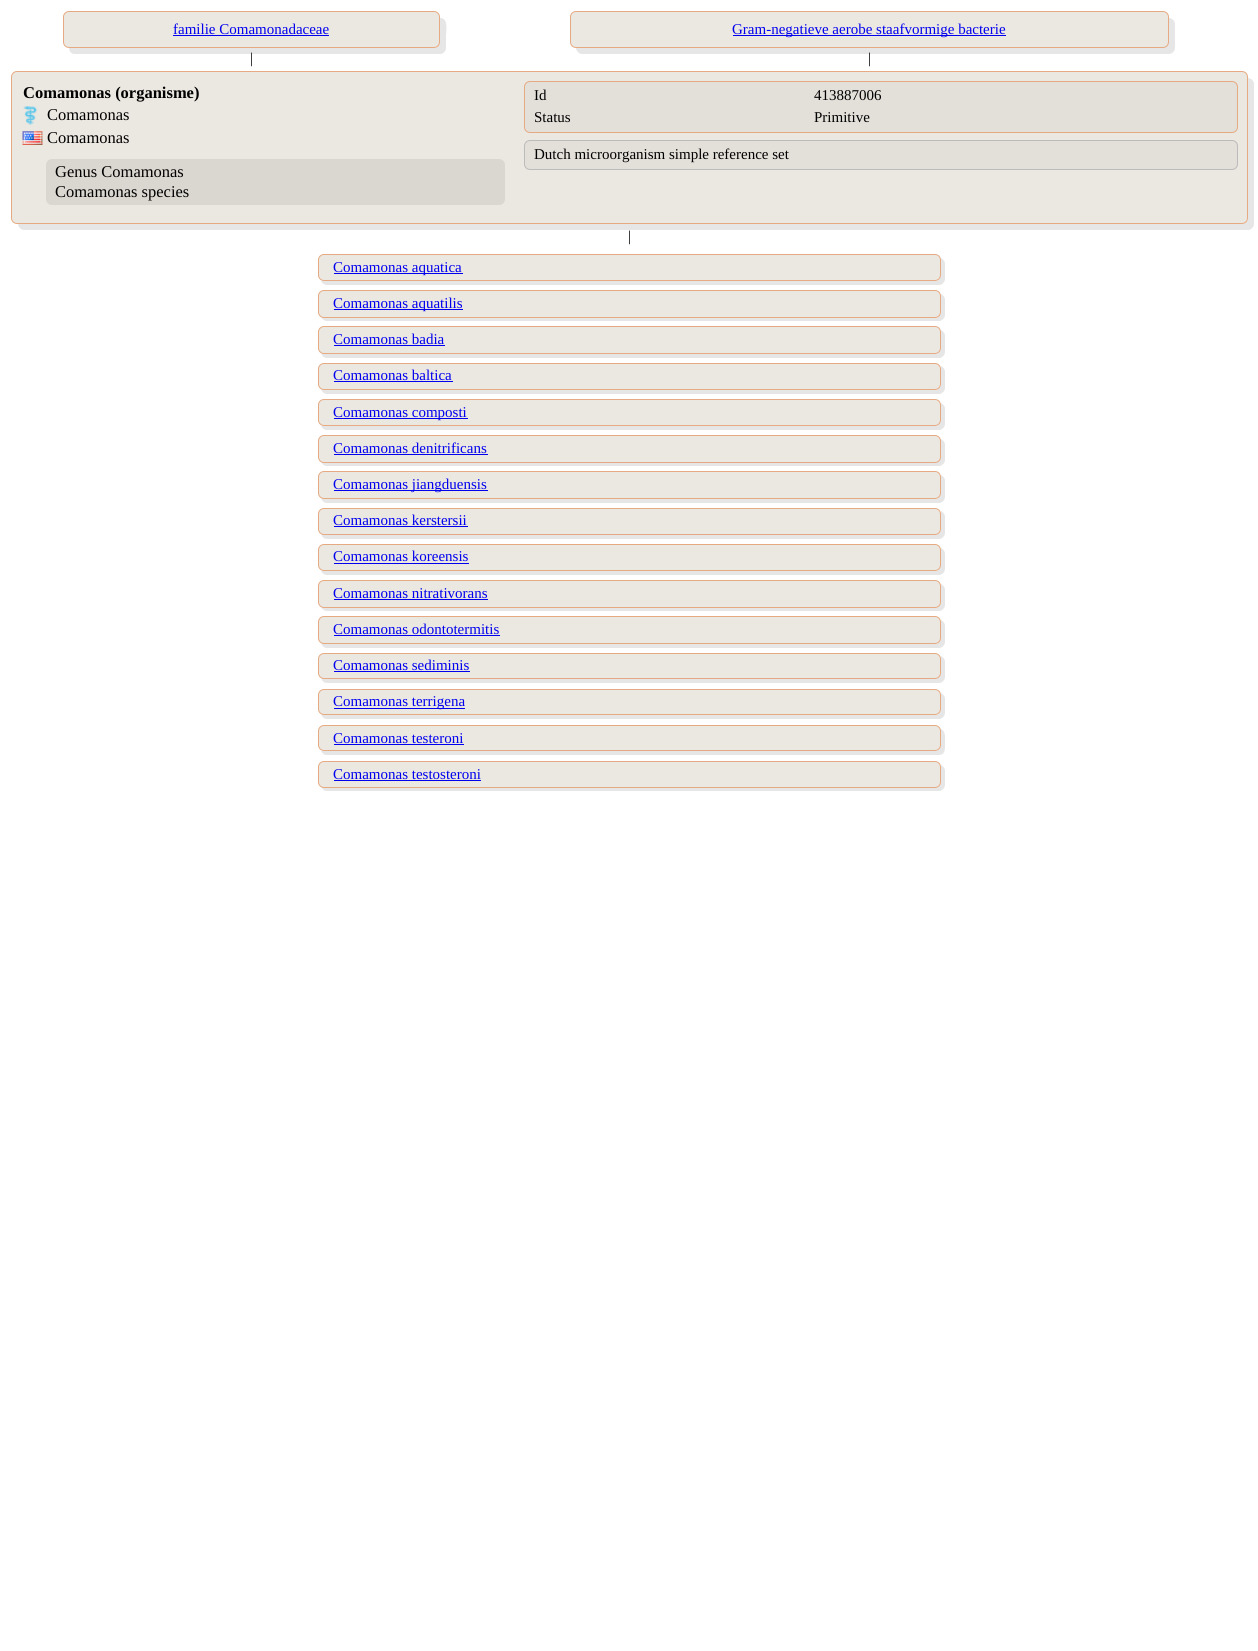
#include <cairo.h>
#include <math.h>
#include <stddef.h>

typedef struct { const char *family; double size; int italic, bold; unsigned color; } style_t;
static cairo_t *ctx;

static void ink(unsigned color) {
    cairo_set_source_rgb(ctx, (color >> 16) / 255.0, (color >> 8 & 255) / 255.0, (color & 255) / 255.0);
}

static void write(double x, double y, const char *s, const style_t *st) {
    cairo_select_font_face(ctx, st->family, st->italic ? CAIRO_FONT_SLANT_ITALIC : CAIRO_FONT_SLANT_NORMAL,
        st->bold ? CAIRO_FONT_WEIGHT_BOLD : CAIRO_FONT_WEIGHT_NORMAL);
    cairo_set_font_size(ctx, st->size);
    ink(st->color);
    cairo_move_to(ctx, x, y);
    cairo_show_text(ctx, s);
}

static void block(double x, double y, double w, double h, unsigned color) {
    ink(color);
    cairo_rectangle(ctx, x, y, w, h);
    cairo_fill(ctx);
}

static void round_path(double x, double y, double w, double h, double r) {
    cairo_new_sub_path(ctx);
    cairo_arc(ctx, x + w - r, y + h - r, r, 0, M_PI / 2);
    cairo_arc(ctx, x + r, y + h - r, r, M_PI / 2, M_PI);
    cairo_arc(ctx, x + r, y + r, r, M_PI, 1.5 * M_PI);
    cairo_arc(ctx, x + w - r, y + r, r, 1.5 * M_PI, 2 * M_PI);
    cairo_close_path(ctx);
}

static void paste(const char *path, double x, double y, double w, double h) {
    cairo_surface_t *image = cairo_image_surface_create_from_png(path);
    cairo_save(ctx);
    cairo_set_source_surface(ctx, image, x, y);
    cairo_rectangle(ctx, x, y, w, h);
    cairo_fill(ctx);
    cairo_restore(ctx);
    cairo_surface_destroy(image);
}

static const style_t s1 = {"Liberation Serif", 15, 0, 0, 0x0000ee};
static const style_t s2 = {"Liberation Serif", 15, 0, 0, 0x000000};
static const style_t s3 = {"Liberation Serif", 16.5, 0, 1, 0x000000};
static const style_t s4 = {"Liberation Serif", 16.5, 0, 0, 0x000000};

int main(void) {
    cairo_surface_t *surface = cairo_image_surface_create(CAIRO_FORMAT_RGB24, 1258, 1651);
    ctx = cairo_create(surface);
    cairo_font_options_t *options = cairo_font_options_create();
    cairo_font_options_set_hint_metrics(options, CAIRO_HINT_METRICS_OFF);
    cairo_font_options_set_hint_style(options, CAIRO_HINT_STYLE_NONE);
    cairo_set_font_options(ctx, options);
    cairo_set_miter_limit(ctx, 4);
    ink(0xffffff);
    cairo_paint(ctx);
    ink(0xe6e6e6);
    cairo_new_path(ctx);
    cairo_move_to(ctx, 69, 48);
    cairo_curve_to(ctx, 69, 51, 71, 54, 75, 54);
    cairo_line_to(ctx, 440, 54);
    cairo_curve_to(ctx, 443, 54, 445, 52, 446, 49);
    cairo_line_to(ctx, 446, 36);
    cairo_curve_to(ctx, 446, 31, 449, 18, 440, 18);
    cairo_line_to(ctx, 440, 41);
    cairo_curve_to(ctx, 440, 45, 437, 48, 434, 48);
    cairo_close_path(ctx);
    cairo_fill(ctx);
    ink(0xebe7e1);
    round_path(63.5, 11.5, 376, 36, 5.5);
    cairo_fill_preserve(ctx);
    ink(0xe6aa83);
    cairo_set_line_width(ctx, 1);
    cairo_stroke(ctx);
    write(173, 34, "familie Comamonadaceae", &s1);
    block(173, 35, 156, 1, 0x0000ee);
    ink(0xe6e6e6);
    cairo_new_path(ctx);
    cairo_move_to(ctx, 576, 47);
    cairo_line_to(ctx, 576, 48);
    cairo_curve_to(ctx, 576, 51, 579, 54, 582, 54);
    cairo_line_to(ctx, 1169, 54);
    cairo_curve_to(ctx, 1172, 54, 1175, 51, 1175, 48);
    cairo_line_to(ctx, 1175, 24);
    cairo_curve_to(ctx, 1175, 21, 1172, 18, 1169, 18);
    cairo_line_to(ctx, 1169, 34);
    cairo_curve_to(ctx, 1169, 38, 1170, 47, 1162, 48);
    cairo_close_path(ctx);
    cairo_fill(ctx);
    ink(0xebe7e1);
    round_path(570.5, 11.5, 598, 36, 5.5);
    cairo_fill_preserve(ctx);
    ink(0xe6aa83);
    cairo_stroke(ctx);
    block(733, 35, 273, 1, 0x0000ee);
    write(732, 34, "Gram-negatieve aerobe staafvormige bacterie", &s1);
    write(250, 63, "|", &s2);
    write(868, 63, "|", &s2);
    ink(0xe6e6e6);
    cairo_new_path(ctx);
    cairo_move_to(ctx, 18, 224);
    cairo_curve_to(ctx, 18, 227, 21, 230, 24, 230);
    cairo_line_to(ctx, 1248, 230);
    cairo_curve_to(ctx, 1251, 230, 1254, 227, 1254, 224);
    cairo_line_to(ctx, 1254, 84);
    cairo_curve_to(ctx, 1254, 81, 1251, 78, 1248, 78);
    cairo_line_to(ctx, 1248, 218);
    cairo_curve_to(ctx, 1248, 221, 1245, 224, 1241, 224);
    cairo_close_path(ctx);
    cairo_fill(ctx);
    ink(0xebe7e1);
    round_path(11.5, 71.5, 1236, 152, 5.5);
    cairo_fill_preserve(ctx);
    ink(0xe6aa83);
    cairo_stroke(ctx);
    write(23, 98, "Comamonas (organisme)", &s3);
    paste("pic1.png", 23, 106, 14, 19);
    write(47, 120, "Comamonas", &s4);
    paste("pic2.png", 22, 131, 21, 14);
    write(47, 143, "Comamonas", &s4);
    ink(0xdad6d0);
    round_path(46, 159, 459, 46, 6);
    cairo_fill(ctx);
    write(55, 177, "Genus Comamonas", &s4);
    write(55, 197, "Comamonas species", &s4);
    ink(0xe3dfd9);
    round_path(524.5, 81.5, 713, 51, 5.5);
    cairo_fill_preserve(ctx);
    ink(0xe6aa83);
    cairo_stroke(ctx);
    write(534, 100, "Id", &s2);
    write(814, 100, "413887006", &s2);
    write(534, 122, "Status", &s2);
    write(814, 122, "Primitive", &s2);
    ink(0xe3dfd9);
    round_path(524.5, 140.5, 713, 29, 5.5);
    cairo_fill_preserve(ctx);
    ink(0xbbbbbb);
    cairo_stroke(ctx);
    write(534, 159, "Dutch microorganism simple reference set", &s2);
    write(628, 241, "|", &s2);
    ink(0xe6e6e6);
    cairo_new_path(ctx);
    cairo_move_to(ctx, 321, 281);
    cairo_curve_to(ctx, 322, 283, 324, 285, 327, 285);
    cairo_line_to(ctx, 939, 285);
    cairo_curve_to(ctx, 942, 285, 945, 282, 945, 279);
    cairo_line_to(ctx, 945, 264);
    cairo_curve_to(ctx, 945, 261, 943, 259, 941, 258);
    cairo_line_to(ctx, 941, 268);
    cairo_curve_to(ctx, 941, 272, 942, 281, 935, 281);
    cairo_line_to(ctx, 324, 281);
    cairo_close_path(ctx);
    cairo_fill(ctx);
    ink(0xebe7e1);
    round_path(318.5, 254.5, 622, 26, 5.5);
    cairo_fill_preserve(ctx);
    ink(0xe6aa83);
    cairo_stroke(ctx);
    block(334, 273, 129, 1, 0x0000ee);
    write(333, 272, "Comamonas aquatica", &s1);
    ink(0xe6e6e6);
    cairo_new_path(ctx);
    cairo_move_to(ctx, 321, 317);
    cairo_curve_to(ctx, 322, 319, 324, 321, 327, 321);
    cairo_line_to(ctx, 939, 321);
    cairo_curve_to(ctx, 942, 321, 945, 318, 945, 315);
    cairo_line_to(ctx, 945, 300);
    cairo_curve_to(ctx, 945, 297, 943, 295, 941, 294);
    cairo_line_to(ctx, 941, 304);
    cairo_curve_to(ctx, 941, 309, 942, 317, 935, 318);
    cairo_line_to(ctx, 324, 318);
    cairo_close_path(ctx);
    cairo_fill(ctx);
    ink(0xebe7e1);
    round_path(318.5, 290.5, 622, 27, 5.5);
    cairo_fill_preserve(ctx);
    ink(0xe6aa83);
    cairo_stroke(ctx);
    block(334, 309, 129, 1, 0x0000ee);
    write(333, 308, "Comamonas aquatilis", &s1);
    ink(0xe6e6e6);
    cairo_new_path(ctx);
    cairo_move_to(ctx, 321, 353);
    cairo_curve_to(ctx, 322, 356, 324, 358, 327, 358);
    cairo_line_to(ctx, 939, 358);
    cairo_curve_to(ctx, 942, 358, 945, 355, 945, 352);
    cairo_line_to(ctx, 945, 336);
    cairo_curve_to(ctx, 945, 333, 943, 331, 941, 330);
    cairo_line_to(ctx, 941, 340);
    cairo_curve_to(ctx, 941, 345, 942, 354, 935, 354);
    cairo_line_to(ctx, 324, 354);
    cairo_close_path(ctx);
    cairo_fill(ctx);
    ink(0xebe7e1);
    round_path(318.5, 326.5, 622, 27, 5.5);
    cairo_fill_preserve(ctx);
    ink(0xe6aa83);
    cairo_stroke(ctx);
    write(333, 344, "Comamonas badia", &s1);
    block(334, 345, 111, 1, 0x0000ee);
    ink(0xe6e6e6);
    cairo_new_path(ctx);
    cairo_move_to(ctx, 321, 389);
    cairo_curve_to(ctx, 322, 392, 324, 394, 327, 394);
    cairo_line_to(ctx, 939, 394);
    cairo_curve_to(ctx, 942, 394, 945, 391, 945, 388);
    cairo_line_to(ctx, 945, 372);
    cairo_curve_to(ctx, 945, 369, 943, 367, 941, 366);
    cairo_line_to(ctx, 941, 369);
    cairo_line_to(ctx, 941, 384);
    cairo_curve_to(ctx, 941, 387, 938, 390, 935, 390);
    cairo_line_to(ctx, 324, 390);
    cairo_close_path(ctx);
    cairo_fill(ctx);
    ink(0xebe7e1);
    round_path(318.5, 363.5, 622, 26, 5.5);
    cairo_fill_preserve(ctx);
    ink(0xe6aa83);
    cairo_stroke(ctx);
    write(333, 380, "Comamonas baltica", &s1);
    block(334, 381, 119, 1, 0x0000ee);
    ink(0xe6e6e6);
    cairo_new_path(ctx);
    cairo_move_to(ctx, 321, 426);
    cairo_curve_to(ctx, 322, 428, 324, 430, 327, 430);
    cairo_line_to(ctx, 939, 430);
    cairo_curve_to(ctx, 942, 430, 945, 427, 945, 424);
    cairo_line_to(ctx, 945, 409);
    cairo_curve_to(ctx, 945, 406, 943, 404, 941, 403);
    cairo_line_to(ctx, 941, 412);
    cairo_curve_to(ctx, 941, 417, 942, 426, 935, 426);
    cairo_line_to(ctx, 324, 426);
    cairo_close_path(ctx);
    cairo_fill(ctx);
    ink(0xebe7e1);
    round_path(318.5, 399.5, 622, 26, 5.5);
    cairo_fill_preserve(ctx);
    ink(0xe6aa83);
    cairo_stroke(ctx);
    block(334, 418, 134, 1, 0x0000ee);
    write(333, 417, "Comamonas composti", &s1);
    ink(0xe6e6e6);
    cairo_new_path(ctx);
    cairo_move_to(ctx, 321, 462);
    cairo_curve_to(ctx, 322, 464, 324, 466, 327, 466);
    cairo_line_to(ctx, 939, 466);
    cairo_curve_to(ctx, 942, 466, 945, 463, 945, 460);
    cairo_line_to(ctx, 945, 445);
    cairo_curve_to(ctx, 945, 442, 943, 440, 941, 439);
    cairo_line_to(ctx, 941, 449);
    cairo_curve_to(ctx, 941, 454, 942, 462, 935, 462);
    cairo_line_to(ctx, 324, 462);
    cairo_close_path(ctx);
    cairo_fill(ctx);
    ink(0xebe7e1);
    round_path(318.5, 435.5, 622, 27, 5.5);
    cairo_fill_preserve(ctx);
    ink(0xe6aa83);
    cairo_stroke(ctx);
    write(333, 453, "Comamonas denitrificans", &s1);
    block(334, 454, 154, 1, 0x0000ee);
    ink(0xe6e6e6);
    cairo_new_path(ctx);
    cairo_move_to(ctx, 321, 498);
    cairo_curve_to(ctx, 322, 501, 324, 503, 327, 503);
    cairo_line_to(ctx, 939, 503);
    cairo_curve_to(ctx, 942, 503, 945, 500, 945, 497);
    cairo_line_to(ctx, 945, 481);
    cairo_curve_to(ctx, 945, 478, 943, 476, 941, 475);
    cairo_line_to(ctx, 941, 485);
    cairo_curve_to(ctx, 941, 490, 942, 499, 935, 499);
    cairo_line_to(ctx, 324, 499);
    cairo_close_path(ctx);
    cairo_fill(ctx);
    ink(0xebe7e1);
    round_path(318.5, 471.5, 622, 27, 5.5);
    cairo_fill_preserve(ctx);
    ink(0xe6aa83);
    cairo_stroke(ctx);
    block(334, 490, 154, 1, 0x0000ee);
    write(333, 489, "Comamonas jiangduensis", &s1);
    ink(0xe6e6e6);
    cairo_new_path(ctx);
    cairo_move_to(ctx, 321, 534);
    cairo_curve_to(ctx, 322, 537, 324, 539, 327, 539);
    cairo_line_to(ctx, 939, 539);
    cairo_curve_to(ctx, 942, 539, 945, 536, 945, 533);
    cairo_line_to(ctx, 945, 517);
    cairo_curve_to(ctx, 945, 514, 943, 512, 941, 511);
    cairo_line_to(ctx, 941, 514);
    cairo_line_to(ctx, 941, 529);
    cairo_curve_to(ctx, 941, 532, 938, 535, 935, 535);
    cairo_line_to(ctx, 324, 535);
    cairo_close_path(ctx);
    cairo_fill(ctx);
    ink(0xebe7e1);
    round_path(318.5, 508.5, 622, 26, 5.5);
    cairo_fill_preserve(ctx);
    ink(0xe6aa83);
    cairo_stroke(ctx);
    write(333, 525, "Comamonas kerstersii", &s1);
    block(334, 526, 134, 1, 0x0000ee);
    ink(0xe6e6e6);
    cairo_new_path(ctx);
    cairo_move_to(ctx, 321, 571);
    cairo_curve_to(ctx, 322, 573, 324, 575, 327, 575);
    cairo_line_to(ctx, 939, 575);
    cairo_curve_to(ctx, 942, 575, 945, 572, 945, 569);
    cairo_line_to(ctx, 945, 554);
    cairo_curve_to(ctx, 945, 551, 943, 549, 941, 548);
    cairo_line_to(ctx, 941, 558);
    cairo_curve_to(ctx, 941, 562, 942, 571, 935, 571);
    cairo_line_to(ctx, 324, 571);
    cairo_close_path(ctx);
    cairo_fill(ctx);
    ink(0xebe7e1);
    round_path(318.5, 544.5, 622, 26, 5.5);
    cairo_fill_preserve(ctx);
    ink(0xe6aa83);
    cairo_stroke(ctx);
    write(333, 561, "Comamonas koreensis", &s1);
    block(334, 563, 135, 1, 0x0000ee);
    ink(0xe6e6e6);
    cairo_new_path(ctx);
    cairo_move_to(ctx, 321, 607);
    cairo_curve_to(ctx, 322, 609, 324, 611, 327, 611);
    cairo_line_to(ctx, 939, 611);
    cairo_curve_to(ctx, 942, 611, 945, 608, 945, 605);
    cairo_line_to(ctx, 945, 590);
    cairo_curve_to(ctx, 945, 587, 943, 585, 941, 584);
    cairo_line_to(ctx, 941, 594);
    cairo_curve_to(ctx, 941, 599, 942, 607, 935, 608);
    cairo_line_to(ctx, 324, 608);
    cairo_close_path(ctx);
    cairo_fill(ctx);
    ink(0xebe7e1);
    round_path(318.5, 580.5, 622, 27, 5.5);
    cairo_fill_preserve(ctx);
    ink(0xe6aa83);
    cairo_stroke(ctx);
    write(333, 598, "Comamonas nitrativorans", &s1);
    block(334, 599, 154, 1, 0x0000ee);
    ink(0xe6e6e6);
    cairo_new_path(ctx);
    cairo_move_to(ctx, 321, 643);
    cairo_curve_to(ctx, 322, 646, 324, 648, 327, 648);
    cairo_line_to(ctx, 939, 648);
    cairo_curve_to(ctx, 942, 648, 945, 645, 945, 642);
    cairo_line_to(ctx, 945, 626);
    cairo_curve_to(ctx, 945, 623, 943, 621, 941, 620);
    cairo_line_to(ctx, 941, 630);
    cairo_curve_to(ctx, 941, 635, 942, 644, 935, 644);
    cairo_line_to(ctx, 324, 644);
    cairo_close_path(ctx);
    cairo_fill(ctx);
    ink(0xebe7e1);
    round_path(318.5, 616.5, 622, 27, 5.5);
    cairo_fill_preserve(ctx);
    ink(0xe6aa83);
    cairo_stroke(ctx);
    write(333, 634, "Comamonas odontotermitis", &s1);
    block(334, 635, 166, 1, 0x0000ee);
    ink(0xe6e6e6);
    cairo_new_path(ctx);
    cairo_move_to(ctx, 321, 678);
    cairo_curve_to(ctx, 322, 681, 324, 683, 327, 683);
    cairo_line_to(ctx, 939, 683);
    cairo_curve_to(ctx, 942, 683, 945, 680, 945, 677);
    cairo_line_to(ctx, 945, 662);
    cairo_curve_to(ctx, 945, 659, 943, 657, 941, 656);
    cairo_line_to(ctx, 941, 659);
    cairo_line_to(ctx, 941, 672);
    cairo_curve_to(ctx, 941, 676, 938, 679, 935, 679);
    cairo_line_to(ctx, 324, 679);
    cairo_close_path(ctx);
    cairo_fill(ctx);
    ink(0xebe7e1);
    round_path(318.5, 653.5, 622, 25, 5.5);
    cairo_fill_preserve(ctx);
    ink(0xe6aa83);
    cairo_stroke(ctx);
    write(333, 670, "Comamonas sediminis", &s1);
    block(334, 671, 136, 1, 0x0000ee);
    ink(0xe6e6e6);
    cairo_new_path(ctx);
    cairo_move_to(ctx, 321, 714);
    cairo_curve_to(ctx, 322, 717, 324, 719, 327, 719);
    cairo_line_to(ctx, 939, 719);
    cairo_curve_to(ctx, 942, 719, 945, 716, 945, 713);
    cairo_line_to(ctx, 945, 699);
    cairo_curve_to(ctx, 945, 696, 943, 694, 941, 693);
    cairo_line_to(ctx, 941, 702);
    cairo_curve_to(ctx, 941, 707, 942, 715, 935, 715);
    cairo_line_to(ctx, 324, 715);
    cairo_close_path(ctx);
    cairo_fill(ctx);
    ink(0xebe7e1);
    round_path(318.5, 689.5, 622, 25, 5.5);
    cairo_fill_preserve(ctx);
    ink(0xe6aa83);
    cairo_stroke(ctx);
    block(334, 708, 131, 1, 0x0000ee);
    write(333, 706, "Comamonas terrigena", &s1);
    ink(0xe6e6e6);
    cairo_new_path(ctx);
    cairo_move_to(ctx, 321, 751);
    cairo_curve_to(ctx, 322, 753, 324, 755, 326, 755);
    cairo_line_to(ctx, 939, 755);
    cairo_curve_to(ctx, 946, 755, 945, 747, 945, 742);
    cairo_curve_to(ctx, 945, 738, 946, 731, 941, 729);
    cairo_line_to(ctx, 941, 738);
    cairo_curve_to(ctx, 941, 743, 942, 751, 935, 751);
    cairo_line_to(ctx, 324, 751);
    cairo_close_path(ctx);
    cairo_fill(ctx);
    ink(0xebe7e1);
    round_path(318.5, 725.5, 622, 25, 5.5);
    cairo_fill_preserve(ctx);
    ink(0xe6aa83);
    cairo_stroke(ctx);
    write(333, 743, "Comamonas testeroni", &s1);
    block(334, 744, 130, 1, 0x0000ee);
    ink(0xe6e6e6);
    cairo_new_path(ctx);
    cairo_move_to(ctx, 321, 787);
    cairo_curve_to(ctx, 322, 789, 324, 791, 327, 791);
    cairo_line_to(ctx, 939, 791);
    cairo_curve_to(ctx, 942, 791, 945, 788, 945, 785);
    cairo_line_to(ctx, 945, 771);
    cairo_curve_to(ctx, 945, 768, 943, 766, 941, 765);
    cairo_line_to(ctx, 941, 774);
    cairo_curve_to(ctx, 941, 779, 942, 787, 935, 788);
    cairo_line_to(ctx, 324, 788);
    cairo_close_path(ctx);
    cairo_fill(ctx);
    ink(0xebe7e1);
    round_path(318.5, 761.5, 622, 26, 5.5);
    cairo_fill_preserve(ctx);
    ink(0xe6aa83);
    cairo_stroke(ctx);
    write(333, 779, "Comamonas testosteroni", &s1);
    block(334, 780, 147, 1, 0x0000ee);
    cairo_surface_write_to_png(surface, "screenshot.png");
    cairo_font_options_destroy(options);
    cairo_destroy(ctx);
    cairo_surface_destroy(surface);
    return 0;
}
